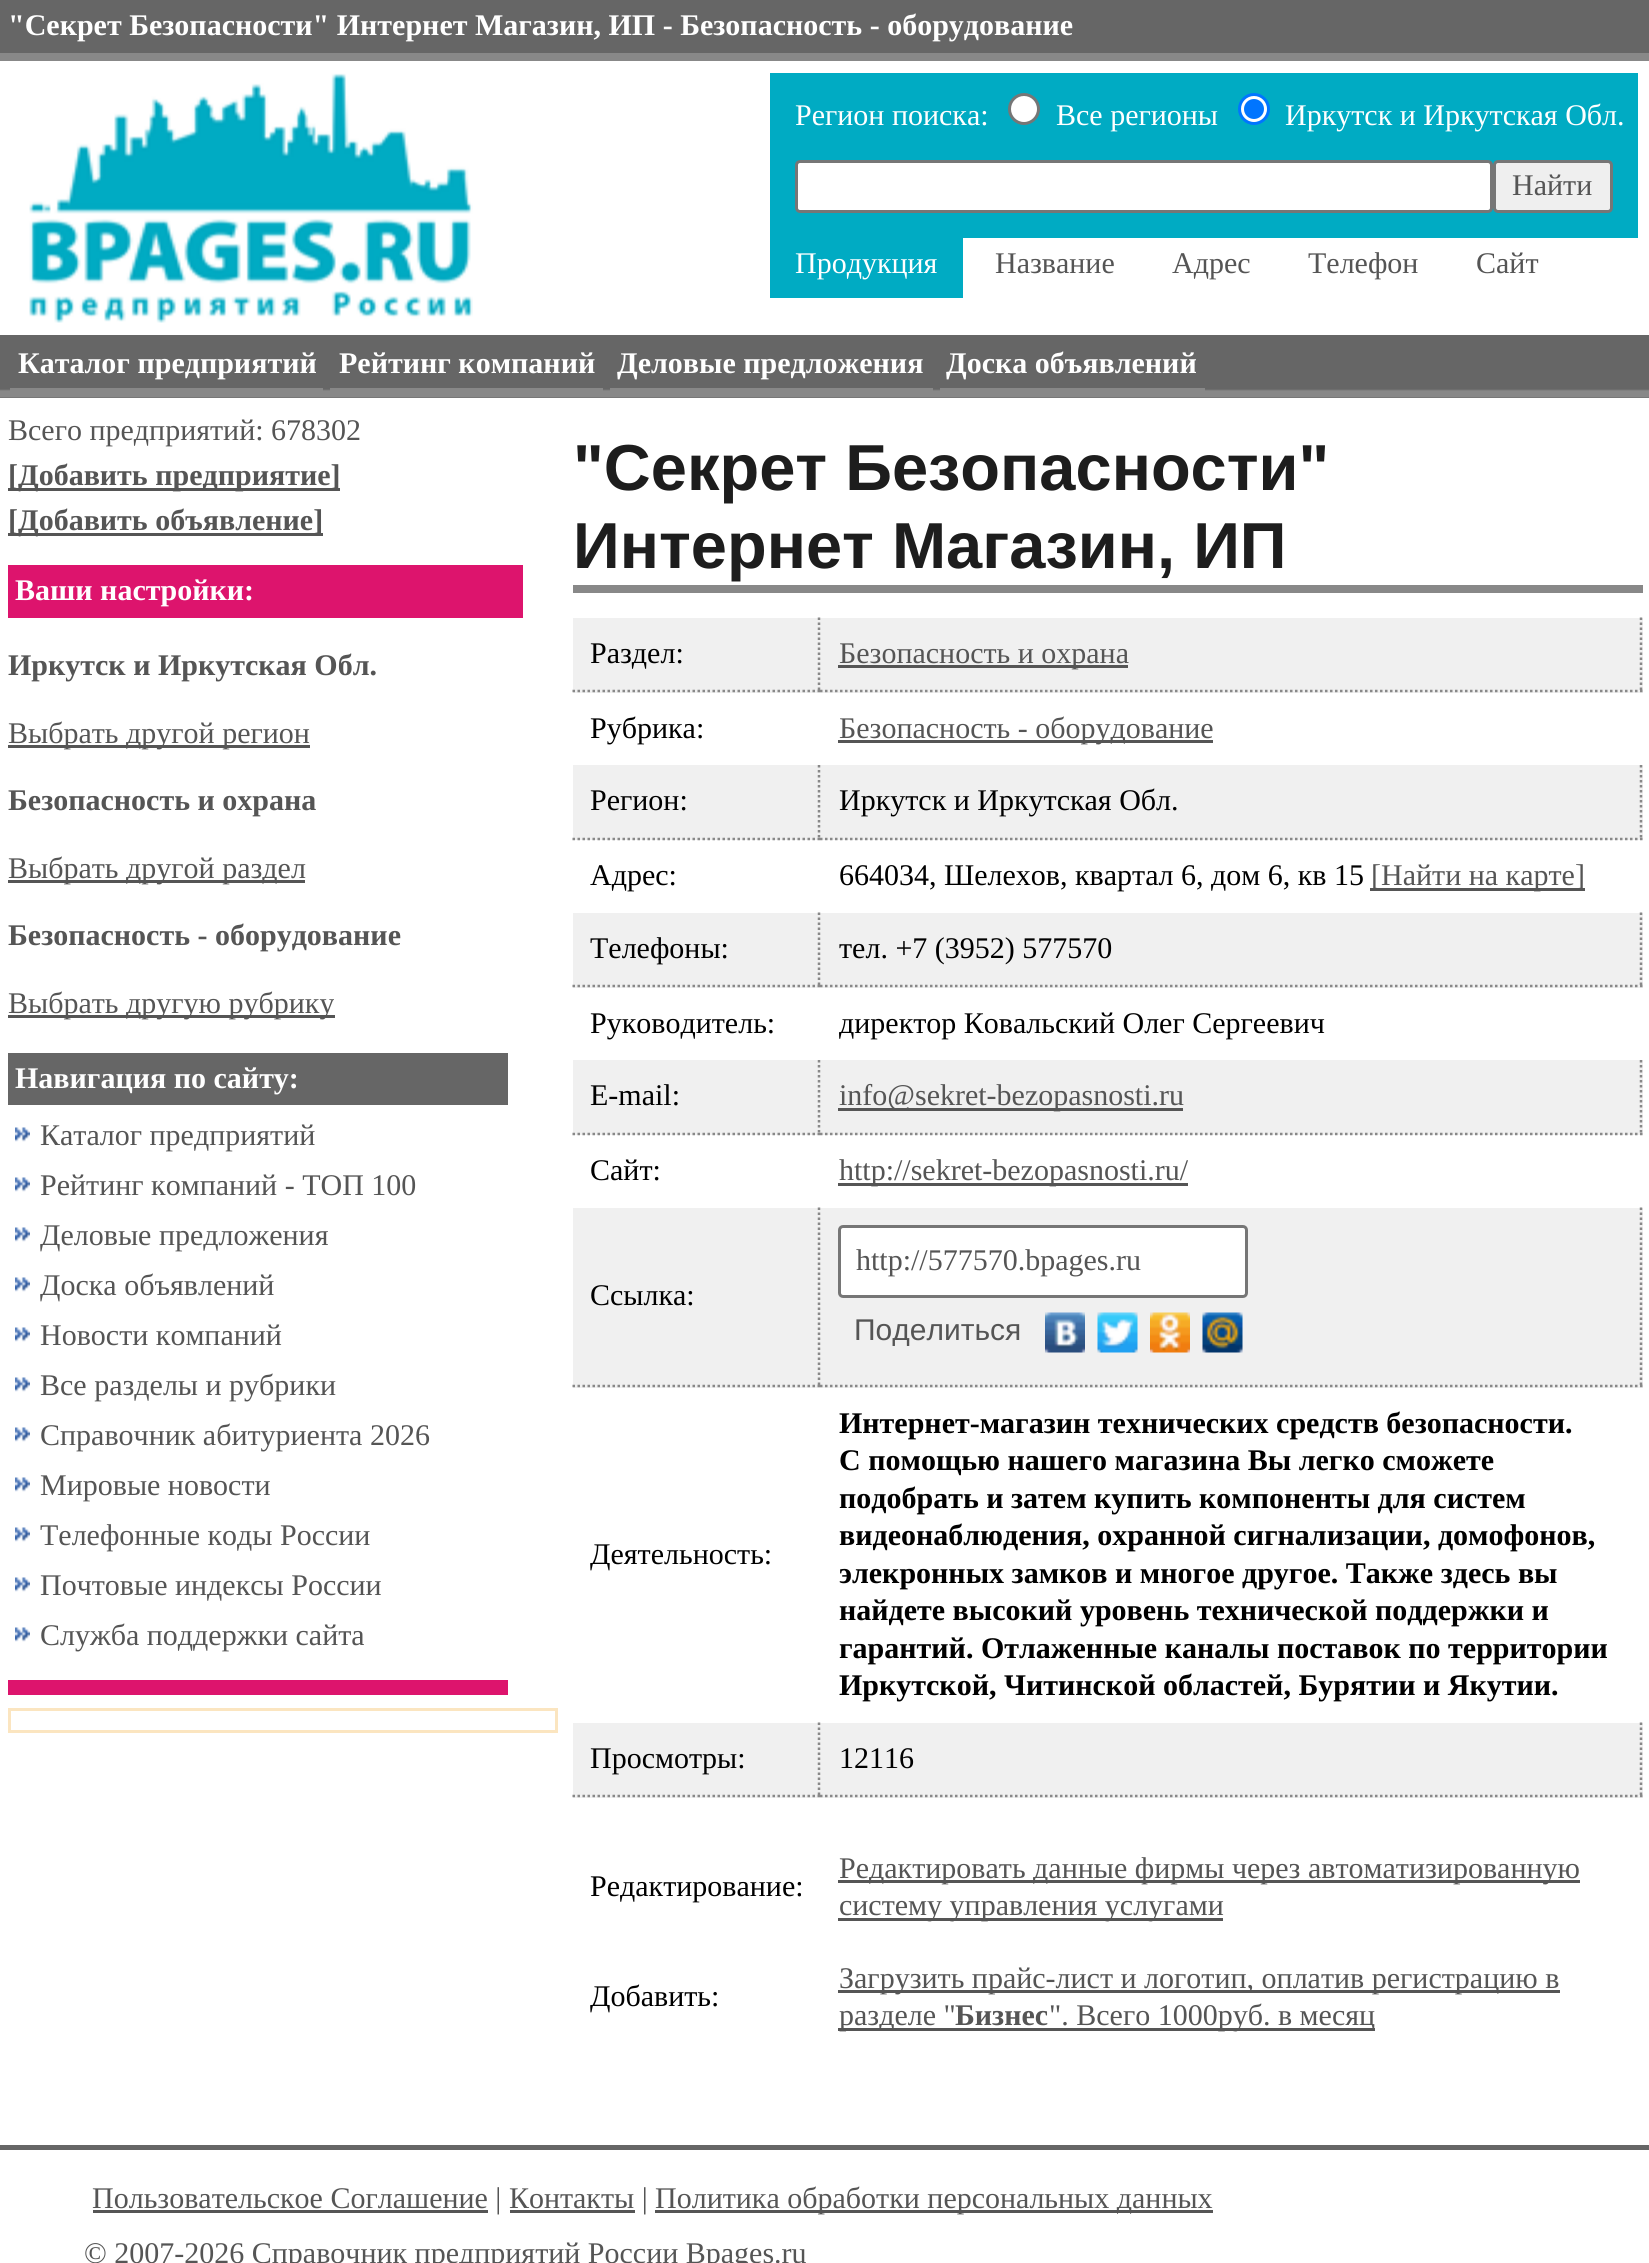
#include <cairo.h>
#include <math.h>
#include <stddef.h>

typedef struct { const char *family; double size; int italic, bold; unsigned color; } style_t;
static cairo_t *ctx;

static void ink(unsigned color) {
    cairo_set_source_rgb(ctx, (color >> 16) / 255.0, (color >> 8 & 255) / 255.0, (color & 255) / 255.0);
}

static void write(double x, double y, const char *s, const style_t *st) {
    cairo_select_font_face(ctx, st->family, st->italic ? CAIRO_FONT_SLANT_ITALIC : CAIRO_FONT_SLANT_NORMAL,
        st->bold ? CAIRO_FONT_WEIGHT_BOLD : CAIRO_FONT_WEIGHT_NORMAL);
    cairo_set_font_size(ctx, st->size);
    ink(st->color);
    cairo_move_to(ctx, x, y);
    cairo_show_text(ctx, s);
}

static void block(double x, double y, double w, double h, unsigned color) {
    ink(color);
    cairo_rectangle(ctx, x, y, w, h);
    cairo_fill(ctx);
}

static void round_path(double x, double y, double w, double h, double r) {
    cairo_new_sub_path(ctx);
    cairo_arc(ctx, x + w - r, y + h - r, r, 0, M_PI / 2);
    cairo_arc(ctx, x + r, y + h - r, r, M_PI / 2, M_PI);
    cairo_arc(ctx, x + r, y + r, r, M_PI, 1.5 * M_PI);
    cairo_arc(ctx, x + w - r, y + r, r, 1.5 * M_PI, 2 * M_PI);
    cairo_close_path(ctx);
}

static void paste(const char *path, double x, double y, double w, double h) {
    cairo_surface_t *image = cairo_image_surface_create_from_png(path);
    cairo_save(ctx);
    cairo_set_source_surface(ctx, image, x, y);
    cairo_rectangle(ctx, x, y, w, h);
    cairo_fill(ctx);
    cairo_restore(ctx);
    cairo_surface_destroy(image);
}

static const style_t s1 = {"Liberation Serif", 30, 0, 1, 0xffffff};
static const style_t s2 = {"Liberation Serif", 30, 0, 0, 0xffffff};
static const style_t s3 = {"Liberation Serif", 30, 0, 0, 0x555555};
static const style_t s4 = {"Liberation Serif", 30, 0, 1, 0x555555};
static const style_t s5 = {"Liberation Sans", 65, 0, 1, 0x1d1d1d};
static const style_t s6 = {"Liberation Serif", 30, 0, 0, 0x000000};
static const style_t s7 = {"Liberation Sans", 30, 0, 0, 0x555555};
static const style_t s8 = {"Liberation Serif", 30, 0, 1, 0x000000};

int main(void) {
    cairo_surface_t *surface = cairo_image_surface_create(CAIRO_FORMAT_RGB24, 1649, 2263);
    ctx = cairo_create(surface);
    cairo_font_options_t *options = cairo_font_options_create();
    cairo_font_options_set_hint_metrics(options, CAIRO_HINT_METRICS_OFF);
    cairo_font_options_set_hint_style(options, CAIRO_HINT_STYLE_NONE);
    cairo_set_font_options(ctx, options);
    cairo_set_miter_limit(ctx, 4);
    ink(0xffffff);
    cairo_paint(ctx);
    block(0, 0, 1649, 53, 0x666666);
    block(0, 53, 1649, 8, 0x888888);
    write(8, 35, "\"Секрет Безопасности\" Интернет Магазин, ИП - Безопасность - оборудование", &s1);
    paste("pic1.png", 29, 73, 444, 250);
    block(770, 73, 868, 165, 0x00abc3);
    write(795, 125, "Регион поиска:", &s2);
    cairo_new_path(ctx);
    cairo_arc(ctx, 1024, 109, 14.5, 0, 2 * M_PI);
    cairo_fill_preserve(ctx);
    ink(0x767676);
    cairo_set_line_width(ctx, 3);
    cairo_stroke(ctx);
    write(1056, 125, "Все регионы", &s2);
    cairo_new_path(ctx);
    cairo_arc(ctx, 1254, 109, 14.5, 0, 2 * M_PI);
    cairo_fill_preserve(ctx);
    ink(0x0075ff);
    cairo_stroke(ctx);
    cairo_arc(ctx, 1254, 109, 10, 0, 2 * M_PI);
    cairo_fill(ctx);
    write(1285, 125, "Иркутск и Иркутская Обл.", &s2);
    round_path(796.5, 161.5, 695, 50, 3.5);
    cairo_fill_preserve(ctx);
    ink(0x767676);
    cairo_stroke(ctx);
    ink(0xefefef);
    round_path(1494.5, 161.5, 117, 50, 3.5);
    cairo_fill_preserve(ctx);
    ink(0x767676);
    cairo_stroke(ctx);
    write(1512, 195, "Найти", &s3);
    block(770, 238, 193, 60, 0x00abc3);
    write(795, 273, "Продукция", &s2);
    write(995, 273, "Название", &s3);
    write(1172, 273, "Адрес", &s3);
    write(1308, 273, "Телефон", &s3);
    write(1476, 273, "Сайт", &s3);
    block(0, 335, 1649, 63, 0x666666);
    paste("pic2.png", 0, 389, 1649, 9);
    write(18, 373, "Каталог предприятий", &s1);
    block(10, 388, 313, 3, 0x888888);
    write(339, 373, "Рейтинг компаний", &s1);
    block(330, 388, 273, 3, 0x888888);
    write(617, 373, "Деловые предложения", &s1);
    block(610, 388, 323, 3, 0x888888);
    write(946, 373, "Доска объявлений", &s1);
    block(940, 388, 265, 3, 0x888888);
    write(8, 440, "Всего предприятий: 678302", &s3);
    block(8, 488, 332, 3, 0x555555);
    write(8, 485, "[Добавить предприятие]", &s4);
    block(8, 533, 315, 3, 0x555555);
    write(8, 530, "[Добавить объявление]", &s4);
    block(8, 565, 515, 53, 0xdd146d);
    write(15, 600, "Ваши настройки:", &s1);
    write(8, 675, "Иркутск и Иркутская Обл.", &s4);
    block(8, 745, 302, 3, 0x555555);
    write(8, 743, "Выбрать другой регион", &s3);
    write(8, 810, "Безопасность и охрана", &s4);
    block(8, 880, 297, 3, 0x555555);
    write(8, 878, "Выбрать другой раздел", &s3);
    write(8, 945, "Безопасность - оборудование", &s4);
    block(8, 1015, 327, 3, 0x555555);
    write(8, 1013, "Выбрать другую рубрику", &s3);
    block(8, 1053, 500, 52, 0x666666);
    write(15, 1088, "Навигация по сайту:", &s1);
    paste("pic3.png", 15, 1127, 15, 15);
    write(40, 1145, "Каталог предприятий", &s3);
    paste("pic3.png", 15, 1177, 15, 15);
    write(40, 1195, "Рейтинг компаний - ТОП 100", &s3);
    paste("pic3.png", 15, 1227, 15, 15);
    write(40, 1245, "Деловые предложения", &s3);
    paste("pic3.png", 15, 1277, 15, 15);
    write(40, 1295, "Доска объявлений", &s3);
    paste("pic3.png", 15, 1327, 15, 15);
    write(40, 1345, "Новости компаний", &s3);
    paste("pic3.png", 15, 1377, 15, 15);
    write(40, 1395, "Все разделы и рубрики", &s3);
    paste("pic3.png", 15, 1427, 15, 15);
    write(40, 1445, "Справочник абитуриента 2026", &s3);
    paste("pic3.png", 15, 1477, 15, 15);
    write(40, 1495, "Мировые новости", &s3);
    paste("pic3.png", 15, 1527, 15, 15);
    write(40, 1545, "Телефонные коды России", &s3);
    paste("pic3.png", 15, 1577, 15, 15);
    write(40, 1595, "Почтовые индексы России", &s3);
    paste("pic4.png", 15, 1627, 15, 15);
    write(40, 1645, "Служба поддержки сайта", &s3);
    block(8, 1680, 500, 15, 0xdd146d);
    cairo_rectangle(ctx, 9.5, 1709.5, 547, 22);
    ink(0xfbe5c0);
    cairo_stroke(ctx);
    block(573, 585, 1070, 8, 0x888888);
    write(573, 490, "\"Секрет Безопасности\"", &s5);
    write(573, 568, "Интернет Магазин, ИП", &s5);
    block(573, 618, 1070, 75, 0xf0f0f0);
    cairo_new_path(ctx);
    cairo_move_to(ctx, 819, 617.5);
    cairo_line_to(ctx, 819, 692.5);
    ink(0x888888);
    cairo_set_line_width(ctx, 2.5);
    cairo_set_dash(ctx, (double[]){2.5, 2.5}, 2, 0);
    cairo_stroke(ctx);
    cairo_new_path(ctx);
    cairo_move_to(ctx, 572.5, 691);
    cairo_line_to(ctx, 820, 691);
    cairo_stroke(ctx);
    write(590, 663, "Раздел:", &s6);
    cairo_new_path(ctx);
    cairo_move_to(ctx, 1641, 617.5);
    cairo_line_to(ctx, 1641, 692.5);
    ink(0x888888);
    cairo_stroke(ctx);
    cairo_new_path(ctx);
    cairo_move_to(ctx, 820, 691);
    cairo_line_to(ctx, 1642.5, 691);
    cairo_stroke(ctx);
    block(838, 665, 290, 3, 0x555555);
    write(839, 663, "Безопасность и охрана", &s3);
    write(590, 738, "Рубрика:", &s6);
    block(838, 740, 375, 3, 0x555555);
    write(839, 738, "Безопасность - оборудование", &s3);
    block(573, 765, 1070, 75, 0xf0f0f0);
    cairo_new_path(ctx);
    cairo_move_to(ctx, 819, 765);
    cairo_line_to(ctx, 819, 840);
    ink(0x888888);
    cairo_stroke(ctx);
    cairo_new_path(ctx);
    cairo_move_to(ctx, 572.5, 839);
    cairo_line_to(ctx, 820, 839);
    cairo_stroke(ctx);
    write(590, 810, "Регион:", &s6);
    cairo_new_path(ctx);
    cairo_move_to(ctx, 1641, 765);
    cairo_line_to(ctx, 1641, 840);
    ink(0x888888);
    cairo_stroke(ctx);
    cairo_new_path(ctx);
    cairo_move_to(ctx, 820, 839);
    cairo_line_to(ctx, 1642.5, 839);
    cairo_stroke(ctx);
    write(839, 810, "Иркутск и Иркутская Обл.", &s6);
    write(590, 885, "Адрес:", &s6);
    write(839, 885, "664034, Шелехов, квартал 6, дом 6, кв 15", &s6);
    block(1370, 888, 215, 3, 0x555555);
    write(1371, 885, "[Найти на карте]", &s3);
    block(573, 913, 1070, 75, 0xf0f0f0);
    cairo_new_path(ctx);
    cairo_move_to(ctx, 819, 912.5);
    cairo_line_to(ctx, 819, 987.5);
    ink(0x888888);
    cairo_stroke(ctx);
    cairo_new_path(ctx);
    cairo_move_to(ctx, 572.5, 986);
    cairo_line_to(ctx, 820, 986);
    cairo_stroke(ctx);
    write(590, 958, "Телефоны:", &s6);
    cairo_new_path(ctx);
    cairo_move_to(ctx, 1641, 912.5);
    cairo_line_to(ctx, 1641, 987.5);
    ink(0x888888);
    cairo_stroke(ctx);
    cairo_new_path(ctx);
    cairo_move_to(ctx, 820, 986);
    cairo_line_to(ctx, 1642.5, 986);
    cairo_stroke(ctx);
    write(839, 958, "тел. +7 (3952) 577570", &s6);
    write(590, 1033, "Руководитель:", &s6);
    write(839, 1033, "директор Ковальский Олег Сергеевич", &s6);
    block(573, 1060, 1070, 75, 0xf0f0f0);
    cairo_new_path(ctx);
    cairo_move_to(ctx, 819, 1060);
    cairo_line_to(ctx, 819, 1135);
    ink(0x888888);
    cairo_stroke(ctx);
    cairo_new_path(ctx);
    cairo_move_to(ctx, 572.5, 1134);
    cairo_line_to(ctx, 820, 1134);
    cairo_stroke(ctx);
    write(590, 1105, "E-mail:", &s6);
    cairo_new_path(ctx);
    cairo_move_to(ctx, 1641, 1060);
    cairo_line_to(ctx, 1641, 1135);
    ink(0x888888);
    cairo_stroke(ctx);
    cairo_new_path(ctx);
    cairo_move_to(ctx, 820, 1134);
    cairo_line_to(ctx, 1642.5, 1134);
    cairo_stroke(ctx);
    block(838, 1108, 345, 3, 0x555555);
    write(839, 1105, "info@sekret-bezopasnosti.ru", &s3);
    write(590, 1180, "Сайт:", &s6);
    block(838, 1183, 350, 3, 0x555555);
    write(839, 1180, "http://sekret-bezopasnosti.ru/", &s3);
    block(573, 1208, 1070, 180, 0xf0f0f0);
    cairo_new_path(ctx);
    cairo_move_to(ctx, 819, 1207.5);
    cairo_line_to(ctx, 819, 1387.5);
    ink(0x888888);
    cairo_stroke(ctx);
    cairo_new_path(ctx);
    cairo_move_to(ctx, 572.5, 1386);
    cairo_line_to(ctx, 820, 1386);
    cairo_stroke(ctx);
    write(590, 1305, "Ссылка:", &s6);
    cairo_new_path(ctx);
    cairo_move_to(ctx, 1641, 1207.5);
    cairo_line_to(ctx, 1641, 1387.5);
    ink(0x888888);
    cairo_stroke(ctx);
    cairo_new_path(ctx);
    cairo_move_to(ctx, 820, 1386);
    cairo_line_to(ctx, 1642.5, 1386);
    cairo_stroke(ctx);
    ink(0xffffff);
    round_path(839.5, 1226.5, 407, 70, 3.5);
    cairo_fill_preserve(ctx);
    ink(0x767676);
    cairo_set_line_width(ctx, 3);
    cairo_set_dash(ctx, NULL, 0, 0);
    cairo_stroke(ctx);
    write(856, 1270, "http://577570.bpages.ru", &s3);
    write(854, 1340, "Поделиться", &s7);
    paste("pic5.png", 1045, 1312, 40, 41);
    paste("pic6.png", 1097, 1312, 41, 41);
    paste("pic7.png", 1150, 1312, 40, 41);
    paste("pic8.png", 1202, 1312, 41, 41);
    write(590, 1564, "Деятельность:", &s6);
    write(839, 1433, "Интернет-магазин технических средств безопасности.", &s8);
    write(839, 1470, "С помощью нашего магазина Вы легко сможете", &s8);
    write(839, 1508, "подобрать и затем купить компоненты для систем", &s8);
    write(839, 1545, "видеонаблюдения, охранной сигнализации, домофонов,", &s8);
    write(839, 1583, "элекронных замков и многое другое. Также здесь вы", &s8);
    write(839, 1620, "найдете высокий уровень технической поддержки и", &s8);
    write(839, 1658, "гарантий. Отлаженные каналы поставок по территории", &s8);
    write(839, 1695, "Иркутской, Читинской областей, Бурятии и Якутии.", &s8);
    block(573, 1723, 1070, 75, 0xf0f0f0);
    cairo_new_path(ctx);
    cairo_move_to(ctx, 819, 1722.5);
    cairo_line_to(ctx, 819, 1797.5);
    ink(0x888888);
    cairo_set_line_width(ctx, 2.5);
    cairo_set_dash(ctx, (double[]){2.5, 2.5}, 2, 0);
    cairo_stroke(ctx);
    cairo_new_path(ctx);
    cairo_move_to(ctx, 572.5, 1796);
    cairo_line_to(ctx, 820, 1796);
    cairo_stroke(ctx);
    write(590, 1768, "Просмотры:", &s6);
    cairo_new_path(ctx);
    cairo_move_to(ctx, 1641, 1722.5);
    cairo_line_to(ctx, 1641, 1797.5);
    ink(0x888888);
    cairo_stroke(ctx);
    cairo_new_path(ctx);
    cairo_move_to(ctx, 820, 1796);
    cairo_line_to(ctx, 1642.5, 1796);
    cairo_stroke(ctx);
    write(839, 1768, "12116", &s6);
    write(590, 1896, "Редактирование:", &s6);
    block(838, 1880, 742, 3, 0x555555);
    write(839, 1878, "Редактировать данные фирмы через автоматизированную", &s3);
    block(838, 1918, 385, 3, 0x555555);
    write(839, 1915, "систему управления услугами", &s3);
    write(590, 2006, "Добавить:", &s6);
    block(838, 1990, 722, 3, 0x555555);
    write(839, 1988, "Загрузить прайс-лист и логотип, оплатив регистрацию в", &s3);
    block(838, 2028, 537, 3, 0x555555);
    write(839, 2025, "разделе \"", &s3);
    write(955, 2025, "Бизнес", &s4);
    write(1049, 2025, "\". Всего 1000руб. в месяц", &s3);
    block(0, 2145, 1649, 5, 0x666666);
    block(93, 2210, 395, 3, 0x555555);
    write(92, 2208, "Пользовательское Соглашение | Контакты |", &s3);
    block(655, 2210, 558, 3, 0x555555);
    write(655, 2208, "Политика обработки персональных данных", &s3);
    block(510, 2210, 125, 3, 0x555555);
    write(84, 2263, "© 2007-2026 Справочник предприятий России Bpages.ru", &s3);
    cairo_surface_write_to_png(surface, "screenshot.png");
    cairo_font_options_destroy(options);
    cairo_destroy(ctx);
    cairo_surface_destroy(surface);
    return 0;
}
